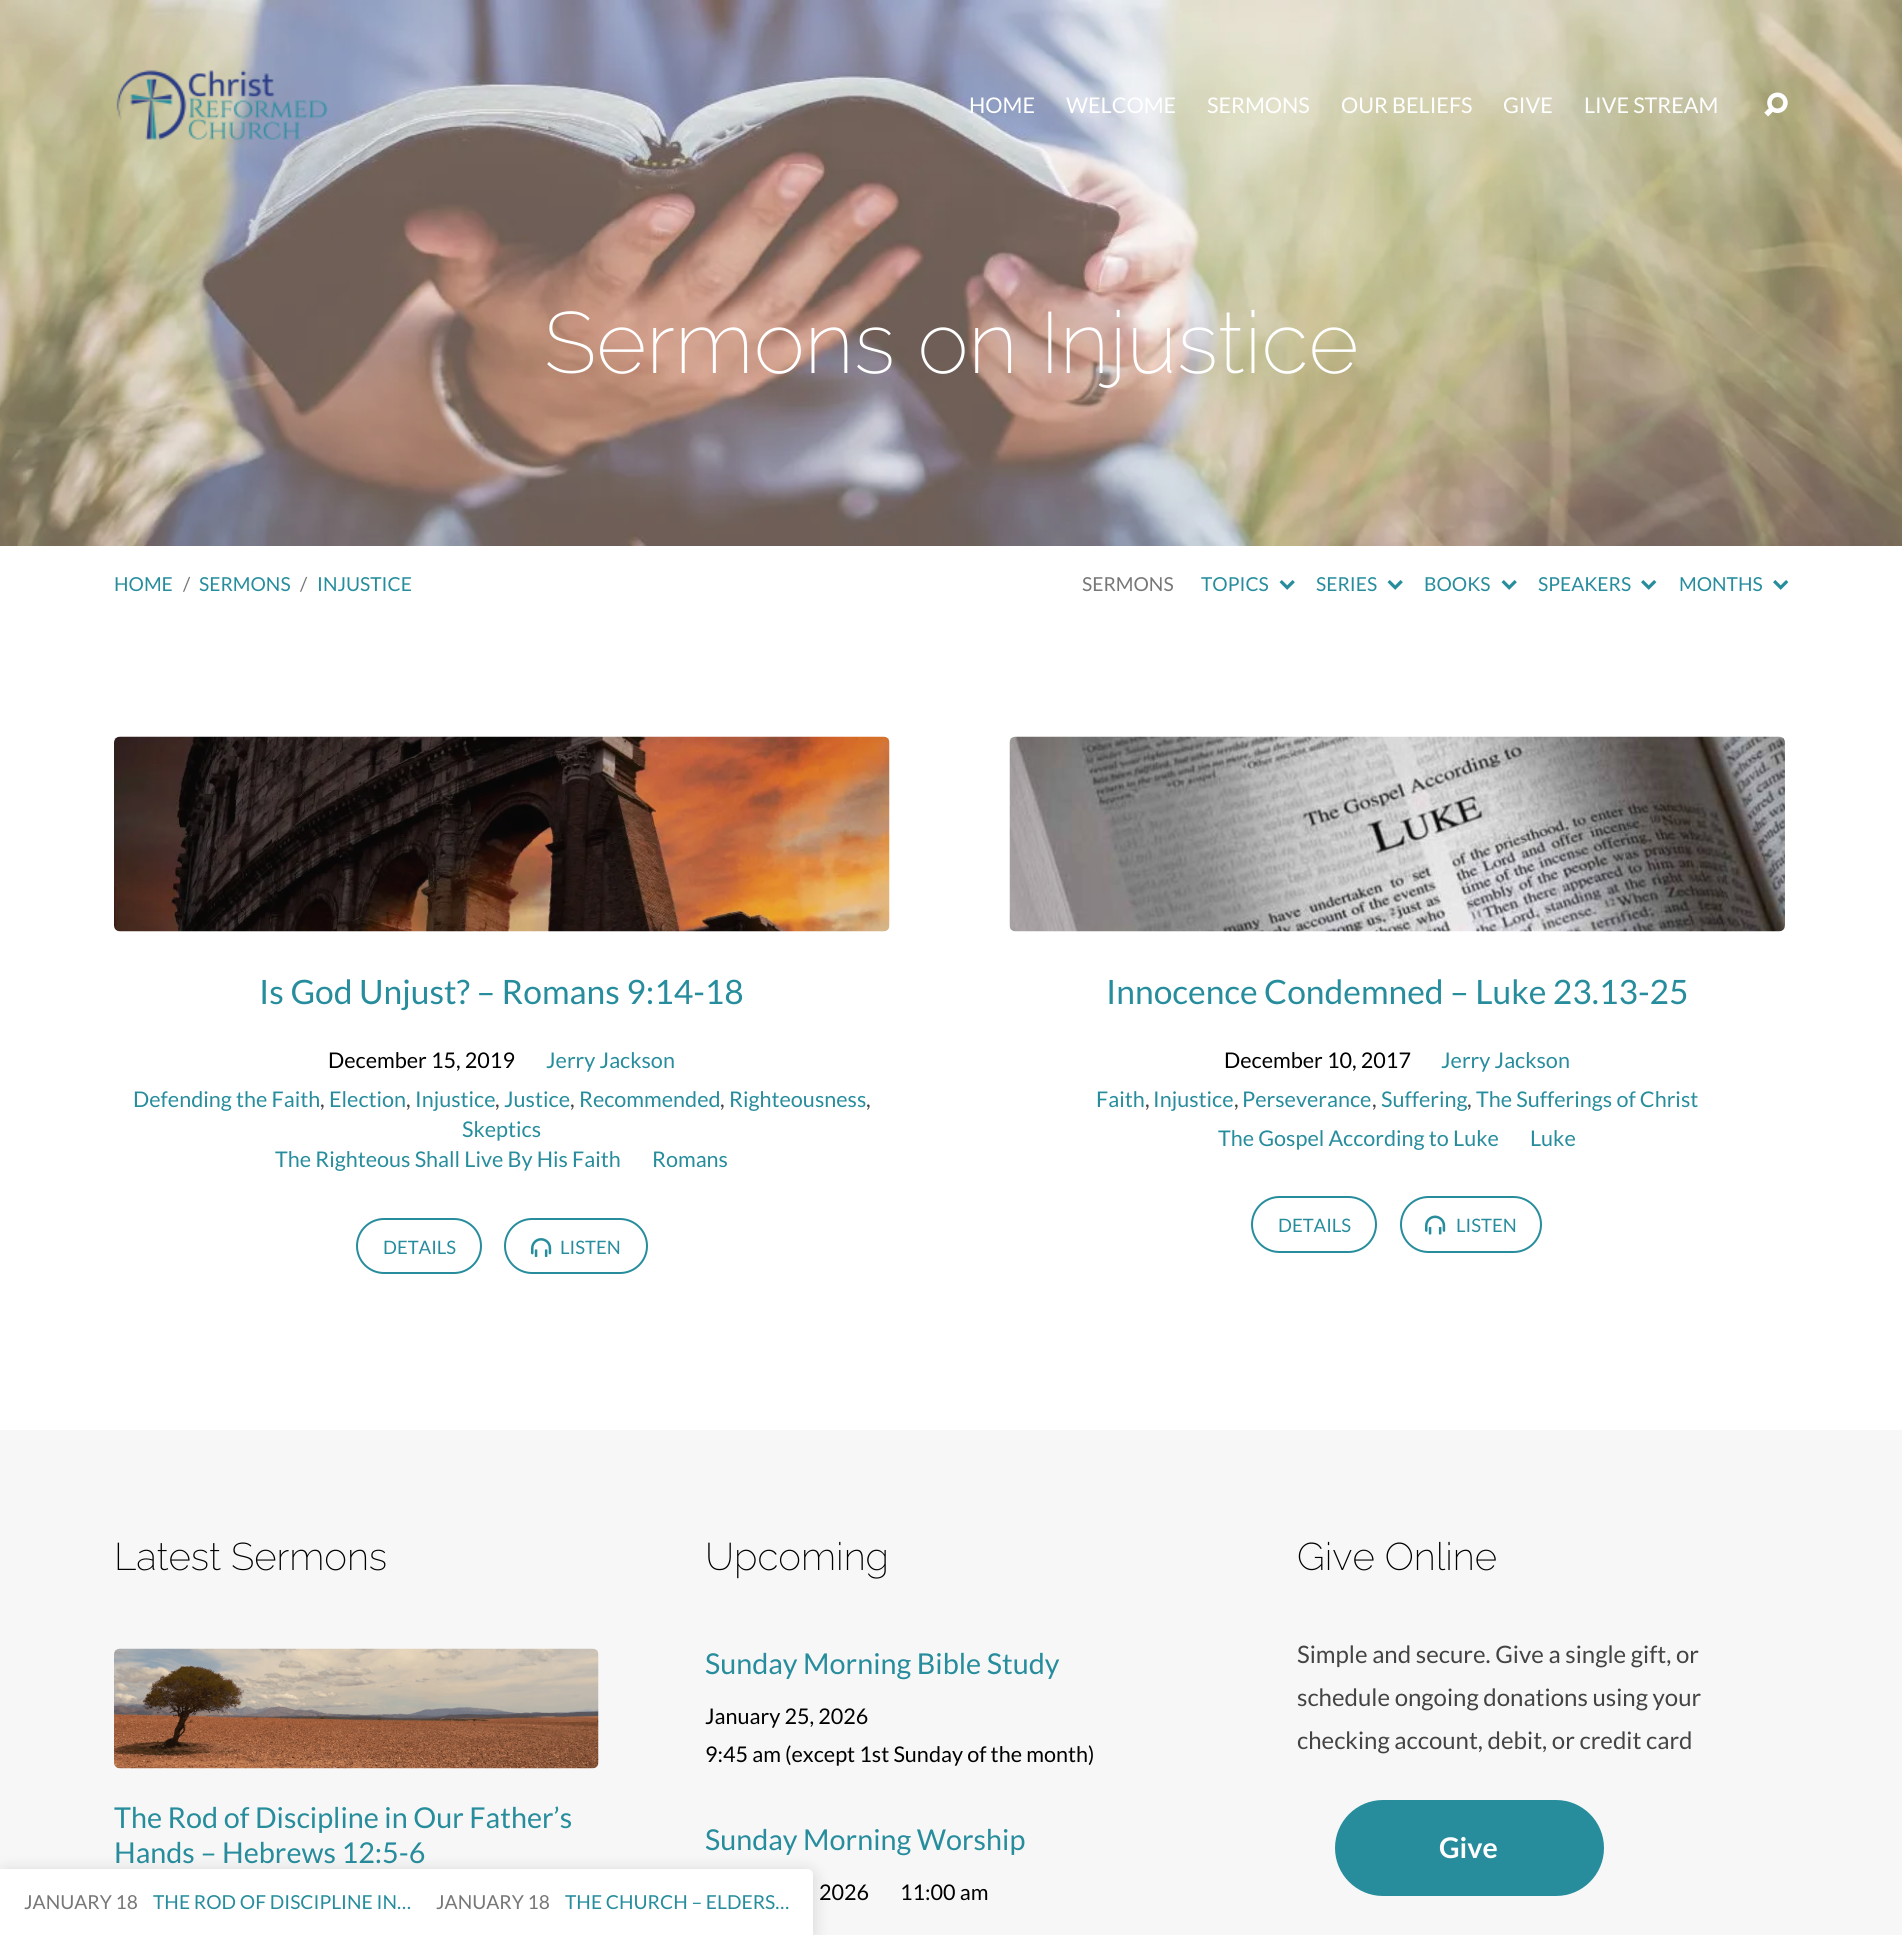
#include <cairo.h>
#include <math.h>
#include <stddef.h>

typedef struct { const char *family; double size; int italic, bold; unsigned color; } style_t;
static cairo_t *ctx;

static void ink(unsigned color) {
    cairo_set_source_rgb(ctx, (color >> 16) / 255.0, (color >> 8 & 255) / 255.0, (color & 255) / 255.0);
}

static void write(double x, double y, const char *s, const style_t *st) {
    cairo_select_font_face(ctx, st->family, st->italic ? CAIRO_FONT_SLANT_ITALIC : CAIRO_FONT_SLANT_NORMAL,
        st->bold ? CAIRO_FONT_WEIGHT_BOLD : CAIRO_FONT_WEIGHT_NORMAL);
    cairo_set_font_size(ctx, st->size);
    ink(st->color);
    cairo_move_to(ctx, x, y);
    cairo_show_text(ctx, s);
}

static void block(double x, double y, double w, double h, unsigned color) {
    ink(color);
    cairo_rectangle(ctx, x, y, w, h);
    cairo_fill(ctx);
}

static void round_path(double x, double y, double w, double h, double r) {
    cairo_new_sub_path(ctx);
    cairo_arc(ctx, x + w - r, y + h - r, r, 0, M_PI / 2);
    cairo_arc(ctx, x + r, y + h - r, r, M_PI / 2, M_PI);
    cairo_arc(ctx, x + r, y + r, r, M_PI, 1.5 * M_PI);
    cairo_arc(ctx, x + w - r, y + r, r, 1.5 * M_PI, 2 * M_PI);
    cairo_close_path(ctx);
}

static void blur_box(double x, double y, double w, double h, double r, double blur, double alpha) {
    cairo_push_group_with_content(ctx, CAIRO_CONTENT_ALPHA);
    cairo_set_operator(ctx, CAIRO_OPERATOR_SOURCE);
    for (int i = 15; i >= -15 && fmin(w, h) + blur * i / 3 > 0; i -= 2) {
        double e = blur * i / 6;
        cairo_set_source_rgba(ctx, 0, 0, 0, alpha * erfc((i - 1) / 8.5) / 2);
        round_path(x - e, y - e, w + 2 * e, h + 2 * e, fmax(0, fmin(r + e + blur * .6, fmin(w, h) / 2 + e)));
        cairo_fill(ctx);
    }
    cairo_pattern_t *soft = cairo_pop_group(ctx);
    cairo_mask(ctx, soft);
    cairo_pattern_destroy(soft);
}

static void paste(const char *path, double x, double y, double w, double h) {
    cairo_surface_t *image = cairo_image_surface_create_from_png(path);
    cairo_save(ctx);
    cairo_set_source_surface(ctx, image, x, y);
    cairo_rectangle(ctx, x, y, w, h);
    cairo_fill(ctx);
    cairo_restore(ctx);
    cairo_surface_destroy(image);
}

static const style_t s1 = {"Lato", 21.6, 0, 0, 0xffffff};
static const style_t s2 = {"Raleway ExtraLight", 86.5, 0, 0, 0xffffff};
static const style_t s3 = {"Lato", 19.25, 0, 0, 0x278d9d};
static const style_t s4 = {"Lato", 19.25, 0, 0, 0x777777};
static const style_t s5 = {"Lato", 33.6, 0, 0, 0x278d9d};
static const style_t s6 = {"Lato", 21.6, 0, 0, 0x000000};
static const style_t s7 = {"Lato", 21.6, 0, 0, 0x278d9d};
static const style_t s8 = {"Lato", 21.6, 0, 0, 0x444444};
static const style_t s9 = {"Lato", 18.5, 0, 0, 0x278d9d};
static const style_t s10 = {"Raleway ExtraLight", 38.5, 0, 0, 0x000000};
static const style_t s11 = {"Lato", 28.75, 0, 0, 0x278d9d};
static const style_t s12 = {"Lato", 24, 0, 0, 0x444444};
static const style_t s13 = {"Lato", 28.5, 0, 1, 0xffffff};

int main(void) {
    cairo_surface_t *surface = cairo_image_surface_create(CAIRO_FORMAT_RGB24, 1902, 1935);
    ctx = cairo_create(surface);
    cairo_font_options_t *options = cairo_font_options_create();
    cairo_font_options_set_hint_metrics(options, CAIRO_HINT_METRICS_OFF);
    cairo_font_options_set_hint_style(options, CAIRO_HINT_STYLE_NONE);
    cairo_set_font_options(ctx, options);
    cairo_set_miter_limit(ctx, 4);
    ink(0xffffff);
    cairo_paint(ctx);
    paste("pic3.png", 0, 0, 1902, 546);
    paste("pic1.png", 116, 70, 212, 70);
    write(969, 113, "HOME", &s1);
    write(1066, 113, "WELCOME", &s1);
    write(1207, 113, "SERMONS", &s1);
    write(1341, 113, "OUR BELIEFS", &s1);
    write(1503, 113, "GIVE", &s1);
    write(1584, 113, "LIVE STREAM", &s1);
    paste("pic2.png", 1764, 92, 24, 25);
    write(544, 373, "Sermons on Injustice", &s2);
    write(114, 591, "HOME", &s3);
    write(183, 591, "/", &s4);
    write(199, 591, "SERMONS", &s3);
    write(300, 591, "/", &s4);
    write(317, 591, "INJUSTICE", &s3);
    write(1082, 591, "SERMONS", &s4);
    write(1201, 591, "TOPICS", &s3);
    paste("pic4.png", 1279, 580, 16, 10);
    write(1316, 591, "SERIES", &s3);
    paste("pic4.png", 1387, 580, 16, 10);
    write(1424, 591, "BOOKS", &s3);
    paste("pic4.png", 1501, 580, 16, 10);
    write(1538, 591, "SPEAKERS", &s3);
    paste("pic5.png", 1641, 580, 16, 10);
    write(1679, 591, "MONTHS", &s3);
    paste("pic5.png", 1773, 580, 16, 10);
    paste("pic6.png", 114, 736, 776, 196);
    write(259, 1004, "Is God Unjust? – Romans 9:14-18", &s5);
    write(328, 1068, "December 15, 2019", &s6);
    write(546, 1068, "Jerry Jackson", &s7);
    write(133, 1107, "Defending the Faith", &s7);
    write(320, 1107, ",", &s8);
    write(329, 1107, "Election", &s7);
    write(406, 1107, ",", &s8);
    write(415, 1107, "Injustice", &s7);
    write(495, 1107, ",", &s8);
    write(504, 1107, "Justice", &s7);
    write(570, 1107, ",", &s8);
    write(579, 1107, "Recommended", &s7);
    write(720, 1107, ",", &s8);
    write(729, 1107, "Righteousness", &s7);
    write(866, 1107, ",", &s8);
    write(462, 1137, "Skeptics", &s7);
    write(275, 1167, "The Righteous Shall Live By His Faith", &s7);
    write(652, 1167, "Romans", &s7);
    round_path(357, 1219, 124, 54, 27);
    cairo_stroke(ctx);
    write(383, 1254, "DETAILS", &s9);
    round_path(505, 1219, 142, 54, 27);
    cairo_stroke(ctx);
    paste("pic7.png", 531, 1238, 21, 19);
    write(560, 1254, "LISTEN", &s9);
    paste("pic8.png", 1009, 736, 776, 196);
    write(1106, 1004, "Innocence Condemned – Luke 23.13-25", &s5);
    write(1224, 1068, "December 10, 2017", &s6);
    write(1441, 1068, "Jerry Jackson", &s7);
    write(1096, 1107, "Faith", &s7);
    write(1145, 1107, ",", &s8);
    write(1153, 1107, "Injustice", &s7);
    write(1234, 1107, ",", &s8);
    write(1242, 1107, "Perseverance", &s7);
    write(1372, 1107, ",", &s8);
    write(1381, 1107, "Suffering", &s7);
    write(1467, 1107, ",", &s8);
    write(1476, 1107, "The Sufferings of Christ", &s7);
    write(1218, 1146, "The Gospel According to Luke", &s7);
    write(1530, 1146, "Luke", &s7);
    round_path(1252, 1197, 124, 55, 27.5);
    cairo_stroke(ctx);
    write(1278, 1232, "DETAILS", &s9);
    round_path(1401, 1197, 140, 55, 27.5);
    cairo_stroke(ctx);
    paste("pic9.png", 1425, 1215, 21, 20);
    write(1456, 1232, "LISTEN", &s9);
    block(0, 1430, 1902, 505, 0xf7f7f7);
    write(114, 1570, "Latest Sermons", &s10);
    paste("pic10.png", 114, 1648, 485, 121);
    write(114, 1828, "The Rod of Discipline in Our Father’s", &s11);
    write(114, 1863, "Hands – Hebrews 12:5-6", &s11);
    write(705, 1570, "Upcoming", &s10);
    write(705, 1674, "Sunday Morning Bible Study", &s11);
    write(705, 1724, "January 25, 2026", &s6);
    write(705, 1762, "9:45 am (except 1st Sunday of the month)", &s6);
    write(705, 1850, "Sunday Morning Worship", &s11);
    write(819, 1900, "2026", &s6);
    write(900, 1900, "11:00 am", &s6);
    write(1297, 1570, "Give Online", &s10);
    write(1297, 1663, "Simple and secure. Give a single gift, or", &s12);
    write(1297, 1706, "schedule ongoing donations using your", &s12);
    write(1297, 1749, "checking account, debit, or credit card", &s12);
    ink(0x278d9d);
    round_path(1335, 1800, 269, 96, 48);
    cairo_fill(ctx);
    write(1439, 1858, "Give", &s13);
    ink(0x000000);
    blur_box(0, 1872, 813, 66, 6, 9, 0.15);
    ink(0xffffff);
    cairo_new_path(ctx);
    cairo_move_to(ctx, 0, 1869);
    cairo_line_to(ctx, 807, 1869);
    cairo_curve_to(ctx, 810.5, 1869, 813, 1871.5, 813, 1875);
    cairo_line_to(ctx, 813, 1935);
    cairo_line_to(ctx, 0, 1935);
    cairo_close_path(ctx);
    cairo_fill(ctx);
    write(24, 1909, "JANUARY 18", &s4);
    write(153, 1909, "THE ROD OF DISCIPLINE IN…", &s3);
    write(436, 1909, "JANUARY 18", &s4);
    write(565, 1909, "THE CHURCH – ELDERS…", &s3);
    cairo_surface_write_to_png(surface, "screenshot.png");
    cairo_font_options_destroy(options);
    cairo_destroy(ctx);
    cairo_surface_destroy(surface);
    return 0;
}
